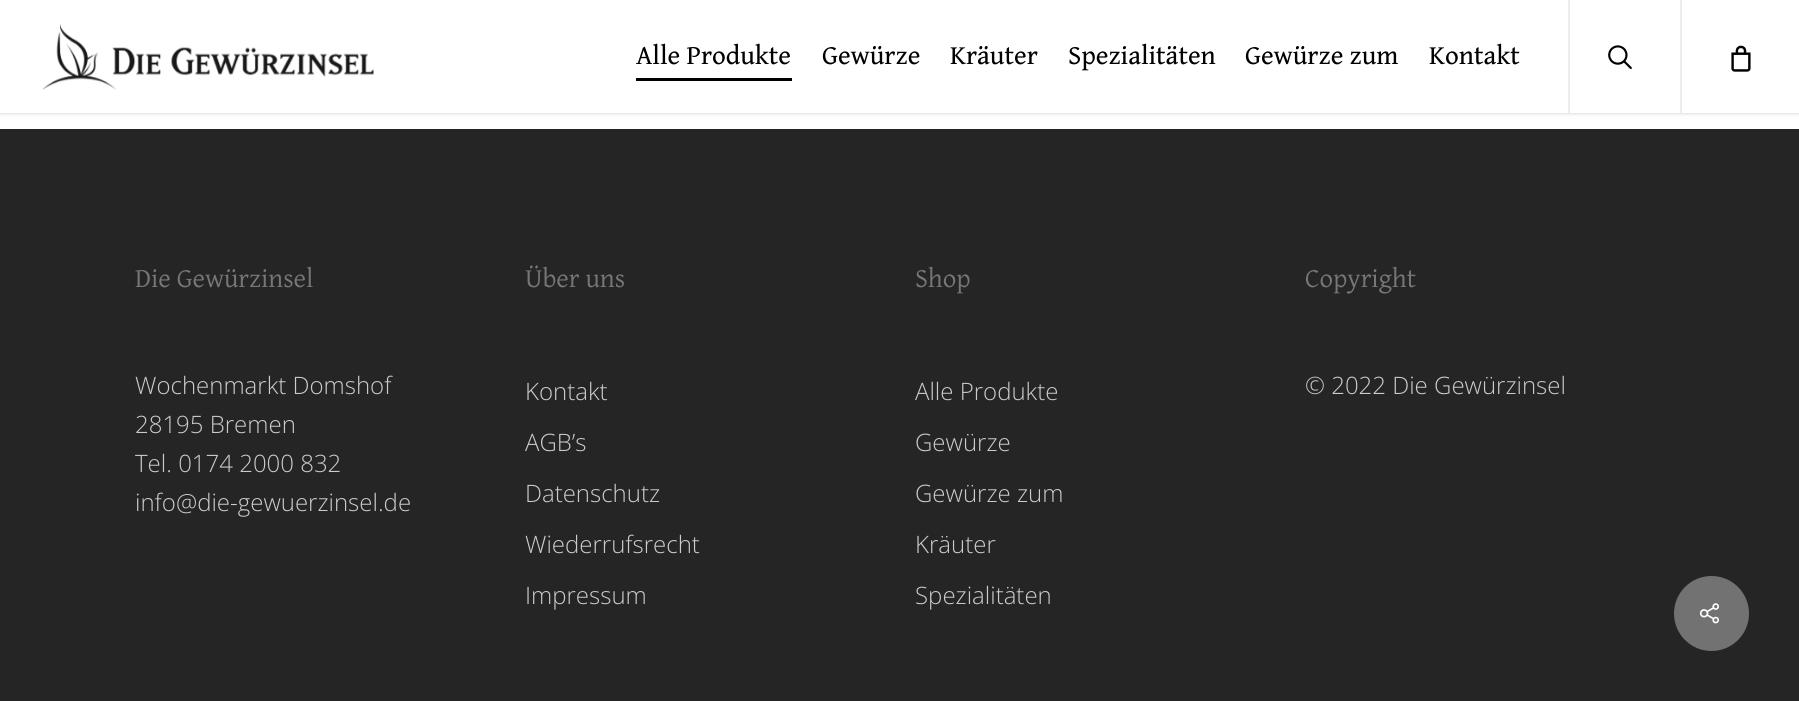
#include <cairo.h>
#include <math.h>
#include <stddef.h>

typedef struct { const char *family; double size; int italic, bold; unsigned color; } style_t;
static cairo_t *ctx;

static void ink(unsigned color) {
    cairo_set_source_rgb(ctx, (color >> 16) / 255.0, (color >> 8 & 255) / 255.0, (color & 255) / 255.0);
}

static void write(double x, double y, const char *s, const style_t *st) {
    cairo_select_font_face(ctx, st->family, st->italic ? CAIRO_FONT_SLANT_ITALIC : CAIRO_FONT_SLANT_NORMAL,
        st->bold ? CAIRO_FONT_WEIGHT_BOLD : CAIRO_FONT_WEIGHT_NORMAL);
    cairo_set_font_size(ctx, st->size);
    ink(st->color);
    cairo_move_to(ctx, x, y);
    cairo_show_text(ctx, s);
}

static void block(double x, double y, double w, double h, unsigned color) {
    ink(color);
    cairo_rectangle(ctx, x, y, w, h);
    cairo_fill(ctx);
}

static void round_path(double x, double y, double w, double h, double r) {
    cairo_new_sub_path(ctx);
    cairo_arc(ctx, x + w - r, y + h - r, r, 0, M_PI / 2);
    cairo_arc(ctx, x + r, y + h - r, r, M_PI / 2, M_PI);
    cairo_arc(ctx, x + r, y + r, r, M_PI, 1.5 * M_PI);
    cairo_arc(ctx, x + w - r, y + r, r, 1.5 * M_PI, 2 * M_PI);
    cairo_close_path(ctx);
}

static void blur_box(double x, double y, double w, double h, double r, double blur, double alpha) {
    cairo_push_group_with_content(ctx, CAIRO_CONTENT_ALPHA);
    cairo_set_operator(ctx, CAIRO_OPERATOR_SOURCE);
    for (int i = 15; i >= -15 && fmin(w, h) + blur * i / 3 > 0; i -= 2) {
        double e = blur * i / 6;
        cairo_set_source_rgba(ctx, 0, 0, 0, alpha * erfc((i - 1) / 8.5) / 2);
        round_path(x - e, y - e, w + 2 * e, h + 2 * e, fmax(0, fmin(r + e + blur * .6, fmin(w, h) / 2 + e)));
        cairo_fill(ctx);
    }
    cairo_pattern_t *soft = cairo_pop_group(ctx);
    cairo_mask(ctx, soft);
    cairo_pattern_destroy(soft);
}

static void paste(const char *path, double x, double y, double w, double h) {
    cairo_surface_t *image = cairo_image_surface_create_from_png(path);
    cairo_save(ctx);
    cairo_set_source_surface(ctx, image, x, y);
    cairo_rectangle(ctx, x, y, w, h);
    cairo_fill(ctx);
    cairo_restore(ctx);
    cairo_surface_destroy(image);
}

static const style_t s1 = {"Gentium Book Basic", 27, 0, 0, 0x000000};
static const style_t s2 = {"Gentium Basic", 27, 0, 0, 0x777777};
static const style_t s3 = {"Open Sans Light", 24, 0, 0, 0xcccccc};

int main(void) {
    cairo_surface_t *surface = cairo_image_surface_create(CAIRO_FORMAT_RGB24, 1799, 701);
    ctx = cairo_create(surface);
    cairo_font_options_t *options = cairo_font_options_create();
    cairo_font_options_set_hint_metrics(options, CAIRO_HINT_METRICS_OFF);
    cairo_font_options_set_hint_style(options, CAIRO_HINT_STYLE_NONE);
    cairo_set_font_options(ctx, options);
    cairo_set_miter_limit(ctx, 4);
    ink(0xffffff);
    cairo_paint(ctx);
    ink(0x000000);
    blur_box(0, 0, 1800, 113, 0, 2, 0.22);
    block(0, 0, 1799, 113, 0xffffff);
    paste("pic1.png", 42, 24, 332, 66);
    write(636, 64, "Alle Produkte", &s1);
    block(636, 78, 156, 3, 0x000000);
    write(822, 64, "Gewürze", &s1);
    write(950, 64, "Kräuter", &s1);
    write(1068, 64, "Spezialitäten", &s1);
    write(1245, 64, "Gewürze zum", &s1);
    write(1429, 64, "Kontakt", &s1);
    block(1568, 0, 2, 113, 0xededed);
    paste("pic2.png", 1608, 45, 24, 24);
    block(1680, 0, 2, 113, 0xededed);
    paste("pic3.png", 1731, 45, 20, 27);
    block(0, 129, 1799, 572, 0x252525);
    write(135, 287, "Die Gewürzinsel", &s2);
    write(135, 394, "Wochenmarkt Domshof", &s3);
    write(135, 433, "28195 Bremen", &s3);
    write(135, 472, "Tel. 0174 2000 832", &s3);
    write(135, 511, "info@die-gewuerzinsel.de", &s3);
    write(525, 287, "Über uns", &s2);
    write(525, 400, "Kontakt", &s3);
    write(525, 451, "AGB’s", &s3);
    write(525, 502, "Datenschutz", &s3);
    write(525, 553, "Wiederrufsrecht", &s3);
    write(525, 604, "Impressum", &s3);
    write(915, 287, "Shop", &s2);
    write(915, 400, "Alle Produkte", &s3);
    write(915, 451, "Gewürze", &s3);
    write(915, 502, "Gewürze zum", &s3);
    write(915, 553, "Kräuter", &s3);
    write(915, 604, "Spezialitäten", &s3);
    write(1305, 287, "Copyright", &s2);
    write(1305, 394, "© 2022 Die Gewürzinsel", &s3);
    ink(0x727272);
    cairo_new_path(ctx);
    cairo_arc(ctx, 1711.5, 613.5, 37.5, 0, 2 * M_PI);
    cairo_fill(ctx);
    paste("pic4.png", 1699, 603, 20, 21);
    cairo_surface_write_to_png(surface, "screenshot.png");
    cairo_font_options_destroy(options);
    cairo_destroy(ctx);
    cairo_surface_destroy(surface);
    return 0;
}
